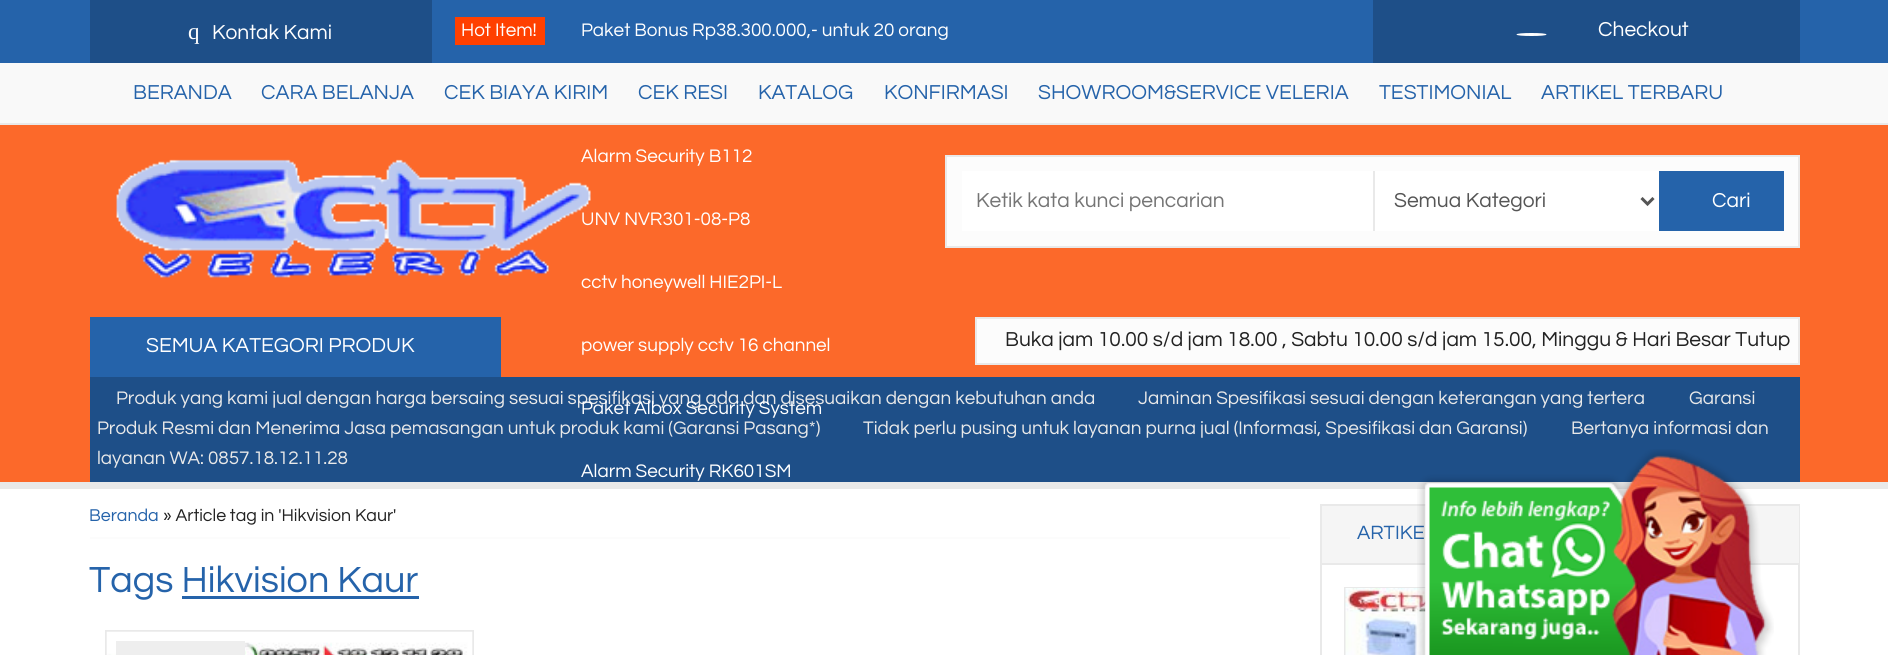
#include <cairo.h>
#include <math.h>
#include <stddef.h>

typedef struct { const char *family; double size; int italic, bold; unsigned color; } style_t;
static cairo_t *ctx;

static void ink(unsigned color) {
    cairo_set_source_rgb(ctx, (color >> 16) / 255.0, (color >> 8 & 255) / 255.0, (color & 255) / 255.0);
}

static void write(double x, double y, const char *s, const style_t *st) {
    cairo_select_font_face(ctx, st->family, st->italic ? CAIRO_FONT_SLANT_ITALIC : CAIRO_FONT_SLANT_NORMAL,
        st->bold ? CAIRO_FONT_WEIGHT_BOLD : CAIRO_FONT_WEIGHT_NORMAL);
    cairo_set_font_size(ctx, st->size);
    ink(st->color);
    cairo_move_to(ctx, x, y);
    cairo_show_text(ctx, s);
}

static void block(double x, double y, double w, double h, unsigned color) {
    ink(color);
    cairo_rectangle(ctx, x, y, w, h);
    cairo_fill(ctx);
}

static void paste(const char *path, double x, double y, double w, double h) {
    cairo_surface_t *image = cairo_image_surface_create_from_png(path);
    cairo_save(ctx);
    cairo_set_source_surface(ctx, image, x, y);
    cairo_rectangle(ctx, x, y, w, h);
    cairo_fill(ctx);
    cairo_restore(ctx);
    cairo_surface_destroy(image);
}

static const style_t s1 = {"Liberation Serif", 23, 0, 0, 0xffffff};
static const style_t s2 = {"Questrial", 21, 0, 0, 0xffffff};
static const style_t s3 = {"Questrial", 18.9, 0, 0, 0xffffff};
static const style_t s4 = {"Questrial", 18.9, 0, 0, 0xe9e9e9};
static const style_t s5 = {"Questrial", 21, 0, 0, 0x2563aa};
static const style_t s6 = {"Questrial", 21, 0, 0, 0x757575};
static const style_t s7 = {"Questrial", 21, 0, 0, 0x555555};
static const style_t s8 = {"Questrial", 21, 0, 0, 0x222222};
static const style_t s9 = {"Questrial", 17.8, 0, 0, 0x2563aa};
static const style_t s10 = {"Questrial", 17.8, 0, 0, 0x222222};
static const style_t s11 = {"Questrial", 37.75, 0, 0, 0x2563aa};
static const style_t s12 = {"Questrial", 20, 0, 0, 0x2563aa};

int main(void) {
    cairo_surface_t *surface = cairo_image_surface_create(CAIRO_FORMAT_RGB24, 1888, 655);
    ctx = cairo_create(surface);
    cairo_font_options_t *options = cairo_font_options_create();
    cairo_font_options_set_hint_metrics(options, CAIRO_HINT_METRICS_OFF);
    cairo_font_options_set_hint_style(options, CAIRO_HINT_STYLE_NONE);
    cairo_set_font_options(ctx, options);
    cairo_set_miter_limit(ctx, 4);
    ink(0xf9f9f9);
    cairo_paint(ctx);
    block(0, 0, 1888, 63, 0x2563aa);
    block(90, 0, 342, 63, 0x1e4f88);
    write(188, 39, "q", &s1);
    write(212, 39, "Kontak Kami", &s2);
    block(455, 17, 90, 28, 0xff4000);
    write(461, 36, "Hot Item!", &s3);
    write(581, 36, "Paket Bonus Rp38.300.000,- untuk 20 orang", &s3);
    block(0, 125, 1888, 357, 0xfc692a);
    paste("pic1.png", 116, 159, 475, 119);
    write(581, 162, "Alarm Security B112", &s3);
    write(581, 225, "UNV NVR301-08-P8", &s3);
    write(581, 288, "cctv honeywell HIE2PI-L", &s3);
    write(581, 351, "power supply cctv 16 channel", &s3);
    block(90, 377, 1710, 105, 0x1e4f88);
    write(116, 404, "Produk yang kami jual dengan harga bersaing sesuai spesifikasi yang ada dan disesuaikan dengan kebutuhan anda", &s4);
    write(581, 414, "Paket Albox Security System", &s3);
    write(581, 477, "Alarm Security RK601SM", &s3);
    block(1373, 0, 427, 63, 0x1e4f88);
    ink(0xffffff);
    cairo_new_path(ctx);
    cairo_move_to(ctx, 1531.5, 33);
    cairo_curve_to(ctx, 1540, 33, 1546.5, 33.5, 1546.5, 34.5);
    cairo_curve_to(ctx, 1546.5, 35.5, 1540, 36, 1531.5, 36);
    cairo_curve_to(ctx, 1523, 36, 1516.5, 35.5, 1516.5, 34.5);
    cairo_curve_to(ctx, 1516.5, 33.5, 1523, 33, 1531.5, 33);
    cairo_close_path(ctx);
    cairo_fill(ctx);
    write(1598, 36, "Checkout", &s2);
    block(0, 123, 1888, 2, 0xe9e9e9);
    write(133, 99, "BERANDA", &s5);
    write(261, 99, "CARA BELANJA", &s5);
    write(444, 99, "CEK BIAYA KIRIM", &s5);
    write(638, 99, "CEK RESI", &s5);
    write(758, 99, "KATALOG", &s5);
    write(884, 99, "KONFIRMASI", &s5);
    write(1038, 99, "SHOWROOM&SERVICE VELERIA", &s5);
    write(1379, 99, "TESTIMONIAL", &s5);
    write(1541, 99, "ARTIKEL TERBARU", &s5);
    ink(0xfcfcfc);
    cairo_rectangle(ctx, 946, 156, 853, 91);
    cairo_fill_preserve(ctx);
    ink(0xe9e9e9);
    cairo_stroke(ctx);
    block(962, 171, 411, 60, 0xffffff);
    write(976, 207, "Ketik kata kunci pencarian", &s6);
    block(1375, 171, 284, 60, 0xffffff);
    block(1373, 171, 2, 60, 0xe9e9e9);
    cairo_new_path(ctx);
    cairo_move_to(ctx, 1641.5, 198);
    cairo_line_to(ctx, 1647.5, 204);
    cairo_line_to(ctx, 1653.5, 198);
    ink(0x555555);
    cairo_set_line_width(ctx, 3);
    cairo_stroke(ctx);
    write(1394, 207, "Semua Kategori", &s7);
    block(1659, 171, 125, 60, 0x2563aa);
    write(1712, 207, "Cari", &s2);
    block(90, 317, 411, 60, 0x2563aa);
    write(146, 352, "SEMUA KATEGORI PRODUK", &s2);
    ink(0xfcfcfc);
    cairo_rectangle(ctx, 976, 318, 823, 46);
    cairo_fill_preserve(ctx);
    ink(0xe9e9e9);
    cairo_set_line_width(ctx, 2);
    cairo_stroke(ctx);
    write(1005, 346, "Buka jam 10.00 s/d jam 18.00 , Sabtu 10.00 s/d jam 15.00, Minggu & Hari Besar Tutup", &s8);
    write(1138, 404, "Jaminan Spesifikasi sesuai dengan keterangan yang tertera", &s4);
    write(1689, 404, "Garansi", &s4);
    write(97, 434, "Produk Resmi dan Menerima Jasa pemasangan untuk produk kami (Garansi Pasang*)", &s4);
    write(863, 434, "Tidak perlu pusing untuk layanan purna jual (Informasi, Spesifikasi dan Garansi)", &s4);
    write(1571, 434, "Bertanya informasi dan", &s4);
    write(97, 464, "layanan WA: 0857.18.12.11.28", &s4);
    block(0, 489, 1888, 166, 0xffffff);
    block(0, 482, 1888, 7, 0xe9e9e9);
    block(90, 537, 1200, 2, 0xfcfcfc);
    write(89, 521, "Beranda", &s9);
    write(163, 521, "» Article tag in 'Hikvision Kaur'", &s10);
    write(89, 592, "Tags Hikvision Kaur", &s11);
    block(182, 596, 237, 3, 0x2563aa);
    cairo_rectangle(ctx, 106, 631, 367, 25);
    ink(0xe9e9e9);
    cairo_stroke(ctx);
    paste("pic2.png", 106, 631, 367, 24);
    block(116, 641, 129, 14, 0xeeeeee);
    cairo_rectangle(ctx, 1321, 505, 478, 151);
    ink(0xe9e9e9);
    cairo_stroke(ctx);
    block(1322, 506, 477, 57, 0xf5f5f5);
    block(1322, 563, 477, 2, 0xe9e9e9);
    write(1357, 539, "ARTIKE", &s12);
    cairo_rectangle(ctx, 1345, 588, 94, 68);
    ink(0xe9e9e9);
    cairo_stroke(ctx);
    paste("pic3.png", 1345, 588, 82, 67);
    paste("pic4.png", 1417, 449, 357, 206);
    cairo_surface_write_to_png(surface, "screenshot.png");
    cairo_font_options_destroy(options);
    cairo_destroy(ctx);
    cairo_surface_destroy(surface);
    return 0;
}
